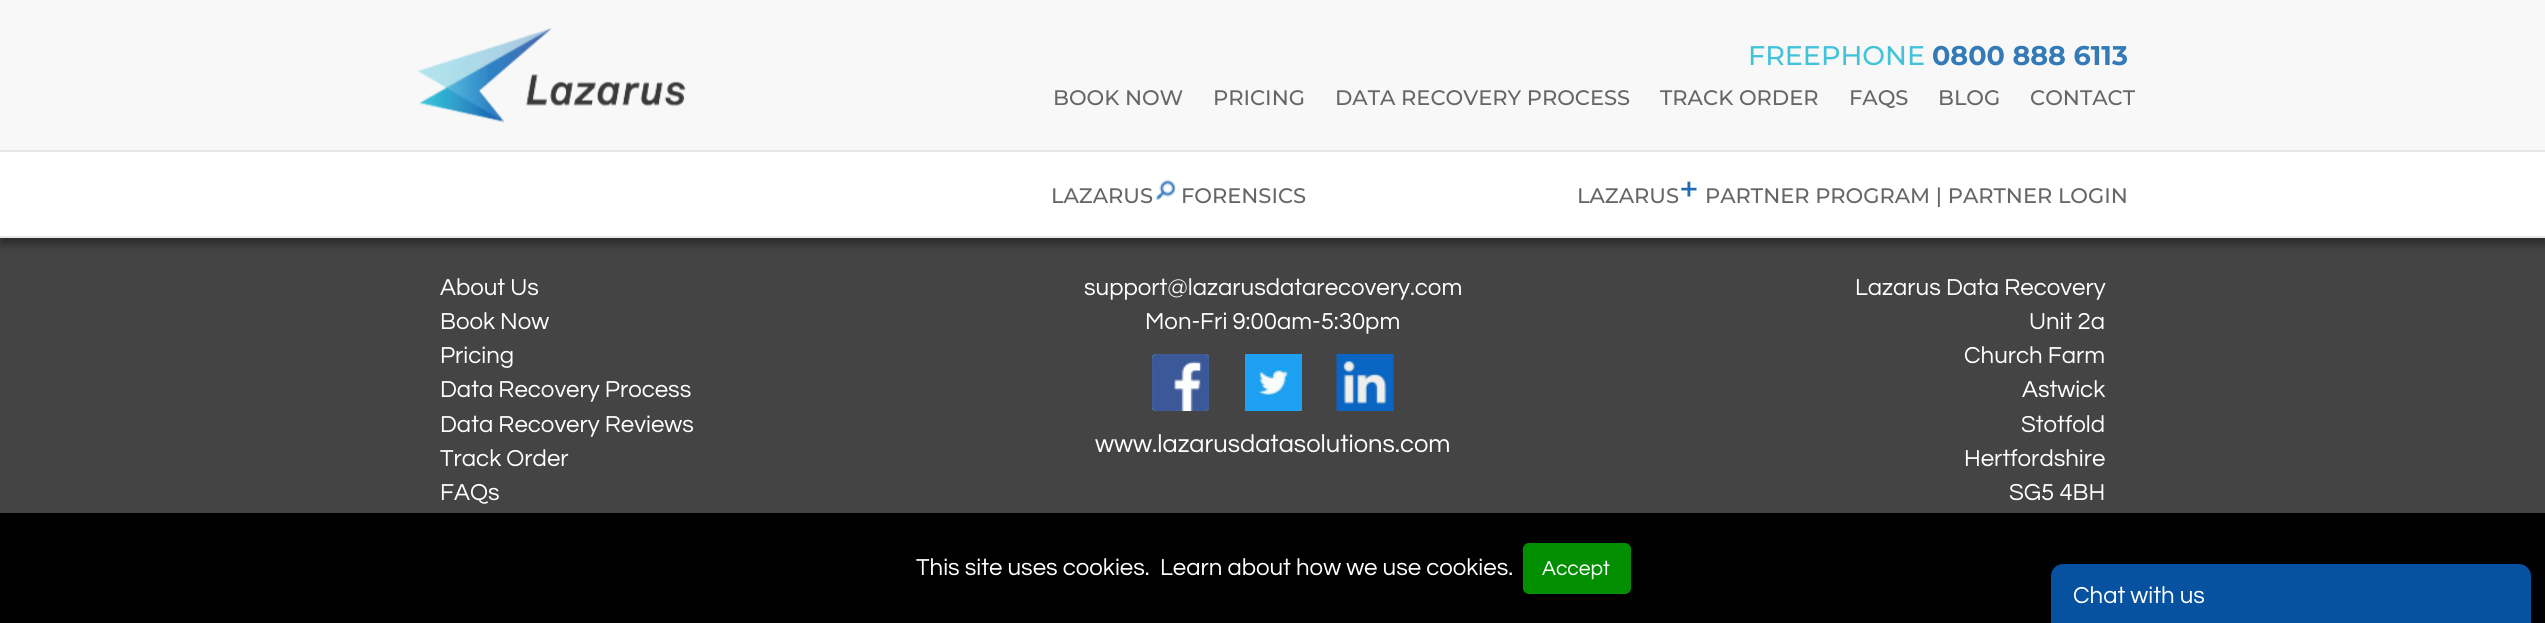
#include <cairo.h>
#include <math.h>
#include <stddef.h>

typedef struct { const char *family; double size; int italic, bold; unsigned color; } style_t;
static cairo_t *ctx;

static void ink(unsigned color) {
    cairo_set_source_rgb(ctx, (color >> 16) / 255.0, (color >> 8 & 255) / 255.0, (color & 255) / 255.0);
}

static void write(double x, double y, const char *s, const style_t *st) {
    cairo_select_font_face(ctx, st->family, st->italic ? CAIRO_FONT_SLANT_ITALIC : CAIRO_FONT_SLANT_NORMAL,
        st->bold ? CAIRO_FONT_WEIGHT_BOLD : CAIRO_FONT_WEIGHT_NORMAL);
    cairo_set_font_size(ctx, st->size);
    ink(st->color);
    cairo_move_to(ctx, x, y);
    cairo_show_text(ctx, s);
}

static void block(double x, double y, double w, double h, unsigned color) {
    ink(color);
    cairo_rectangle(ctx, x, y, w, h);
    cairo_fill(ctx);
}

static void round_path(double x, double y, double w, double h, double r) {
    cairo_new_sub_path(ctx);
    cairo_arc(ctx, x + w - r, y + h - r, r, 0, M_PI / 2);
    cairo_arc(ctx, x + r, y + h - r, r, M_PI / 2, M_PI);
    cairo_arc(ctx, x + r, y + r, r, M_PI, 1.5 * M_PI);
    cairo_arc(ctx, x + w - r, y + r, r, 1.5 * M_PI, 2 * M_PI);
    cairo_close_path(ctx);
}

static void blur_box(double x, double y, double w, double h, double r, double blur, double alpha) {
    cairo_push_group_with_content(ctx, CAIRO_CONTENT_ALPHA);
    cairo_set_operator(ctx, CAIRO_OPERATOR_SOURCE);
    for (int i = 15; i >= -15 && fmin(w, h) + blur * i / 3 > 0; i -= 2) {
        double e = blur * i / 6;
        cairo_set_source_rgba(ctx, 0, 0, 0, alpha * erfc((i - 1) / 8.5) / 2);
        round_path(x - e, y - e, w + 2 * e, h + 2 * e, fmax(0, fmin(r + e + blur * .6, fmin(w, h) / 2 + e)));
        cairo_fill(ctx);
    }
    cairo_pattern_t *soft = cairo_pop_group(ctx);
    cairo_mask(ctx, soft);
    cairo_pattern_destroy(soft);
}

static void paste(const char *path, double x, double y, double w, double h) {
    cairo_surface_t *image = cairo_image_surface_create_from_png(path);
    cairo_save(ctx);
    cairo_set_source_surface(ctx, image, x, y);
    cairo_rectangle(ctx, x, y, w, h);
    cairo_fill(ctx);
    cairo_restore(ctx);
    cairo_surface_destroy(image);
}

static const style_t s1 = {"Montserrat Medium", 27, 0, 0, 0x42c3d9};
static const style_t s2 = {"Montserrat", 27, 0, 1, 0x337ab7};
static const style_t s3 = {"Montserrat Medium", 21, 0, 0, 0x666666};
static const style_t s4 = {"Montserrat Medium", 34, 0, 0, 0x1f6cb5};
static const style_t s5 = {"Questrial", 24, 0, 0, 0xffffff};
static const style_t s6 = {"Questrial", 25.5, 0, 0, 0xffffff};
static const style_t s7 = {"Questrial", 21, 0, 0, 0xffffff};

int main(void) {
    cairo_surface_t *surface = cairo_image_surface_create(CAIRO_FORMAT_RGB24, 2545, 623);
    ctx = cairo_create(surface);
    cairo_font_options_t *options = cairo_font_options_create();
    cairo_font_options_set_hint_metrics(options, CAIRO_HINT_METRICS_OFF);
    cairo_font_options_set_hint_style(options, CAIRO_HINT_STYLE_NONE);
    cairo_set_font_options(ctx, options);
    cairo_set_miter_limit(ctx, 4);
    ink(0x444444);
    cairo_paint(ctx);
    ink(0x000000);
    blur_box(0, 8, 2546, 237, 0, 4, 0.35);
    block(0, 0, 2545, 150, 0xf8f8f8);
    block(0, 236, 2545, 2, 0xe7e7e7);
    paste("pic1.png", 418, 27, 268, 96);
    write(1748, 65, "FREEPHONE", &s1);
    write(1932, 65, "0800 888 6113", &s2);
    write(1053, 105, "BOOK NOW", &s3);
    write(1213, 105, "PRICING", &s3);
    write(1335, 105, "DATA RECOVERY PROCESS", &s3);
    write(1660, 105, "TRACK ORDER", &s3);
    write(1849, 105, "FAQS", &s3);
    write(1938, 105, "BLOG", &s3);
    write(2030, 105, "CONTACT", &s3);
    block(0, 152, 2545, 84, 0xffffff);
    block(0, 150, 2545, 2, 0xe7e7e7);
    write(1051, 203, "LAZARUS", &s3);
    paste("pic2.png", 1156, 179, 20, 21);
    write(1181, 203, "FORENSICS", &s3);
    write(1577, 203, "LAZARUS", &s3);
    write(1679, 201, "+", &s4);
    write(1705, 203, "PARTNER PROGRAM | PARTNER LOGIN", &s3);
    write(440, 295, "About Us", &s5);
    write(440, 329, "Book Now", &s5);
    write(440, 363, "Pricing", &s5);
    write(440, 397, "Data Recovery Process", &s5);
    write(440, 432, "Data Recovery Reviews", &s5);
    write(440, 466, "Track Order", &s5);
    write(440, 500, "FAQs", &s5);
    write(1084, 295, "support@lazarusdatarecovery.com", &s5);
    write(1145, 329, "Mon-Fri 9:00am-5:30pm", &s5);
    paste("pic3.png", 1152, 354, 57, 57);
    paste("pic4.png", 1245, 354, 57, 57);
    paste("pic5.png", 1336, 354, 58, 57);
    write(1095, 452, "www.lazarusdatasolutions.com", &s6);
    write(1855, 295, "Lazarus Data Recovery", &s5);
    write(2029, 329, "Unit 2a", &s5);
    write(1964, 363, "Church Farm", &s5);
    write(2022, 397, "Astwick", &s5);
    write(2021, 432, "Stotfold", &s5);
    write(1964, 466, "Hertfordshire", &s5);
    write(2009, 500, "SG5 4BH", &s5);
    block(0, 513, 2545, 110, 0x000000);
    write(916, 575, "This site uses cookies.", &s5);
    write(1160, 575, "Learn about how we use cookies.", &s5);
    ink(0x018f01);
    round_path(1523, 543, 108, 51, 6);
    cairo_fill(ctx);
    write(1542, 575, "Accept", &s7);
    ink(0x0652a0);
    cairo_new_path(ctx);
    cairo_move_to(ctx, 2063, 564);
    cairo_line_to(ctx, 2519, 564);
    cairo_curve_to(ctx, 2525.5, 564, 2531, 569.5, 2531, 576);
    cairo_line_to(ctx, 2531, 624);
    cairo_line_to(ctx, 2051, 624);
    cairo_line_to(ctx, 2051, 576);
    cairo_curve_to(ctx, 2051, 569.5, 2056.5, 564, 2063, 564);
    cairo_close_path(ctx);
    cairo_fill(ctx);
    write(2073, 603, "Chat with us", &s5);
    cairo_surface_write_to_png(surface, "screenshot.png");
    cairo_font_options_destroy(options);
    cairo_destroy(ctx);
    cairo_surface_destroy(surface);
    return 0;
}
